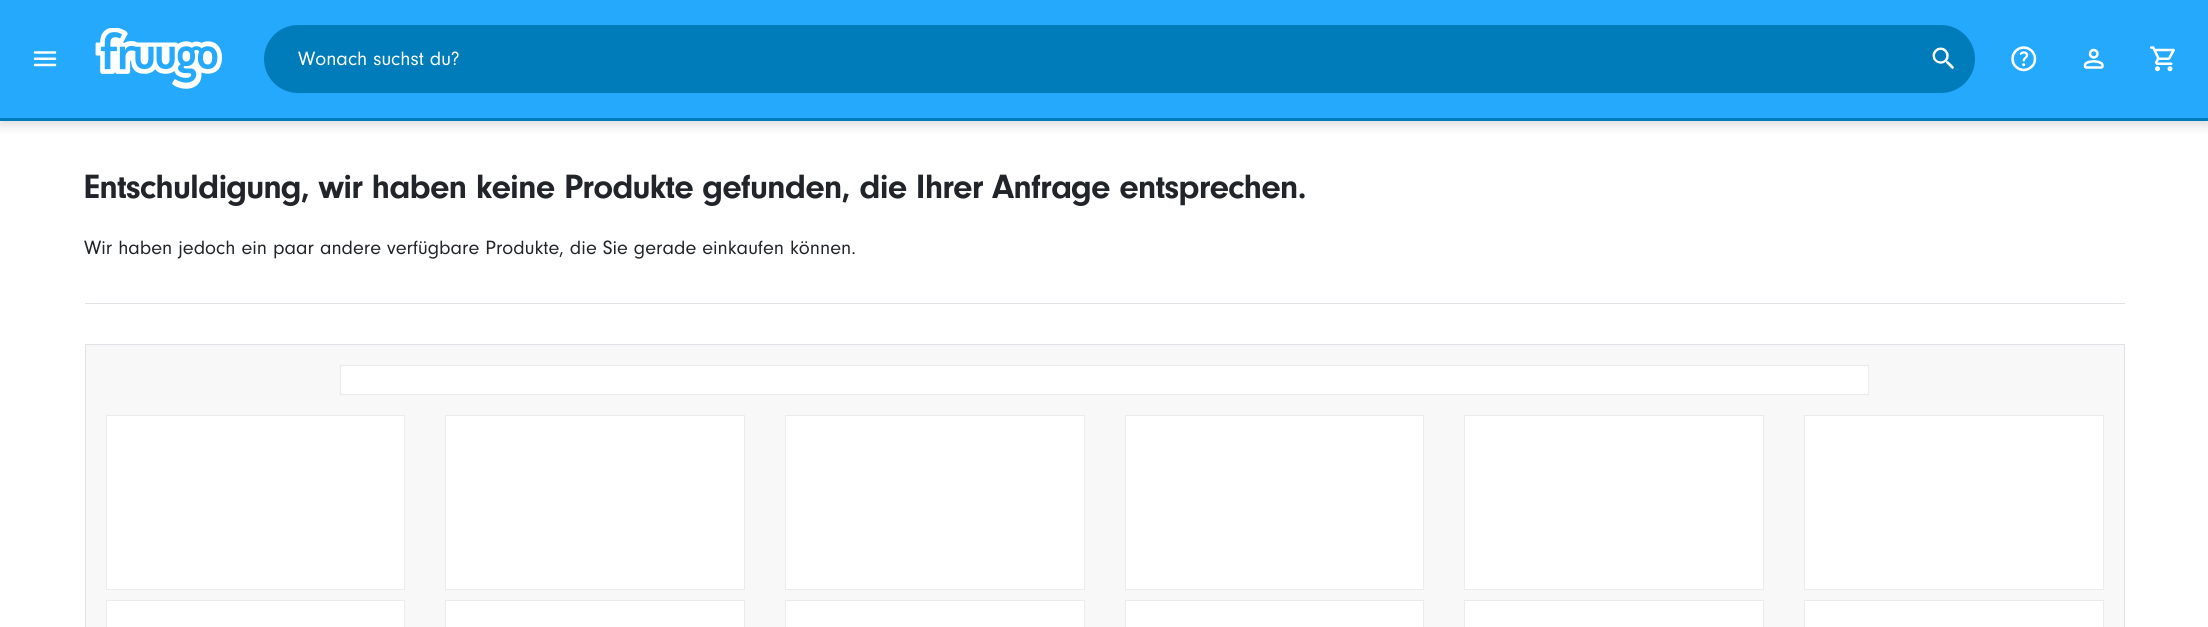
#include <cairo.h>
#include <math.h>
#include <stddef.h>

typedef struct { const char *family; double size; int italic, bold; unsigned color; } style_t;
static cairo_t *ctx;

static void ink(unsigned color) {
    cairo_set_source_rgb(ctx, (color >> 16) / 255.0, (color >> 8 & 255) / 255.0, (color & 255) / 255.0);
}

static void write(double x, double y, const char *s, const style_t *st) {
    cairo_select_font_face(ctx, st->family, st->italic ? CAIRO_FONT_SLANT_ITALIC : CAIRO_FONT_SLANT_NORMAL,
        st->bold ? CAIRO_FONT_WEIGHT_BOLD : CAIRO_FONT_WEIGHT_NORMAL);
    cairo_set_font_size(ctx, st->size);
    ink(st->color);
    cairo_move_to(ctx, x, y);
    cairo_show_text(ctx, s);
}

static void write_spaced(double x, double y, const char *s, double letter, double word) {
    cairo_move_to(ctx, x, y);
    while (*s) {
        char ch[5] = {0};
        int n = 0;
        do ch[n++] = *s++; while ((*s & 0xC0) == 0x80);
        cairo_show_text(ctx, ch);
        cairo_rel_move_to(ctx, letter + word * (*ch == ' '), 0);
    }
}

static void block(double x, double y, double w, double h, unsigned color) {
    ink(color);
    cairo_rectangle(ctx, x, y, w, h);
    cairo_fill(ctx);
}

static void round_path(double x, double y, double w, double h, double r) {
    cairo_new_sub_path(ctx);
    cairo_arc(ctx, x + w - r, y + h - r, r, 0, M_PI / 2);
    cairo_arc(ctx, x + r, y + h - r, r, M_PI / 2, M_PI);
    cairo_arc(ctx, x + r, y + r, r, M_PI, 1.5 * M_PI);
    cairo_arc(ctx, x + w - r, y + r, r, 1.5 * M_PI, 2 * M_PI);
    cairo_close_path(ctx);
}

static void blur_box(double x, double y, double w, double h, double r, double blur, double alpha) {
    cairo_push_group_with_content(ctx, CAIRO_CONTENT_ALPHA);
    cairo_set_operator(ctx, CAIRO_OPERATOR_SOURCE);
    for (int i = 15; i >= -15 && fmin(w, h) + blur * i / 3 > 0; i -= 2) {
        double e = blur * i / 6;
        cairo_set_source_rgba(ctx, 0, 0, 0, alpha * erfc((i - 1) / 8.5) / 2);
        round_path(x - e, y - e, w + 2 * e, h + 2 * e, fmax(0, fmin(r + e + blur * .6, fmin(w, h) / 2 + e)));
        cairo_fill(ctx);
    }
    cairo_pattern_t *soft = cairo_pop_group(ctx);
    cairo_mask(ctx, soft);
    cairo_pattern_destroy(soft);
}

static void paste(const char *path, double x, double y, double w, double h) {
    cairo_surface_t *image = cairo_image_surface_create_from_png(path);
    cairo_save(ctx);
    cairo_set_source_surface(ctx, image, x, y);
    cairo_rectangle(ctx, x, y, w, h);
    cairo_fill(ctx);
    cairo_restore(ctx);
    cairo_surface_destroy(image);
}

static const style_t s1 = {"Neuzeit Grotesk", 20, 0, 0, 0xffffff};
static const style_t s2 = {"Neuzeit Grotesk", 20, 0, 0, 0x212529};

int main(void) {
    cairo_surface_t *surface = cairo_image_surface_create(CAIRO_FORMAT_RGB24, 2208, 627);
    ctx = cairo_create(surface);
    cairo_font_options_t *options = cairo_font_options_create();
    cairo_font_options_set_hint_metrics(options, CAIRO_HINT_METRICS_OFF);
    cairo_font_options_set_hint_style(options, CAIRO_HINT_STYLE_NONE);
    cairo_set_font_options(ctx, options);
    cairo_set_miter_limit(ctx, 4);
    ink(0xffffff);
    cairo_paint(ctx);
    ink(0x282828);
    blur_box(0, 6, 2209, 120, 0, 5, 0.15);
    block(0, 0, 2208, 118, 0x24a9fc);
    block(0, 118, 2208, 3, 0x007cbb);
    paste("pic1.png", 33, 51, 24, 16);
    paste("pic2.png", 95, 28, 127, 61);
    round_path(264, 25, 1711, 68, 34);
    cairo_fill(ctx);
    write(298, 65, "Wonach suchst du?", &s1);
    paste("pic3.png", 1932, 47, 22, 22);
    paste("pic4.png", 2011, 46, 26, 26);
    paste("pic5.png", 2083, 48, 21, 21);
    paste("pic6.png", 2150, 46, 25, 26);
    cairo_select_font_face(ctx, "Neuzeit Grotesk", CAIRO_FONT_SLANT_NORMAL, CAIRO_FONT_WEIGHT_BOLD);
    cairo_set_font_size(ctx, 35);
    ink(0x212529);
    write_spaced(84, 198, "Entschuldigung, wir haben keine Produkte gefunden, die Ihrer Anfrage entsprechen.", -0.88, 0);
    write(84, 254, "Wir haben jedoch ein paar andere verfügbare Produkte, die Sie gerade einkaufen können.", &s2);
    block(85, 303, 2040, 1, 0xdee2e6);
    ink(0xf8f8f8);
    cairo_rectangle(ctx, 85.5, 344.5, 2039, 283);
    cairo_fill_preserve(ctx);
    ink(0xdee2e6);
    cairo_set_line_width(ctx, 1);
    cairo_stroke(ctx);
    ink(0xffffff);
    cairo_rectangle(ctx, 340.5, 365.5, 1528, 29);
    cairo_fill_preserve(ctx);
    ink(0xe9ecef);
    cairo_stroke(ctx);
    ink(0xffffff);
    cairo_rectangle(ctx, 106.5, 415.5, 298, 174);
    cairo_fill_preserve(ctx);
    ink(0xe9ecef);
    cairo_stroke(ctx);
    ink(0xffffff);
    cairo_rectangle(ctx, 106.5, 600.5, 298, 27);
    cairo_fill_preserve(ctx);
    ink(0xe9ecef);
    cairo_stroke(ctx);
    ink(0xffffff);
    cairo_rectangle(ctx, 445.5, 415.5, 299, 174);
    cairo_fill_preserve(ctx);
    ink(0xe9ecef);
    cairo_stroke(ctx);
    ink(0xffffff);
    cairo_rectangle(ctx, 445.5, 600.5, 299, 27);
    cairo_fill_preserve(ctx);
    ink(0xe9ecef);
    cairo_stroke(ctx);
    ink(0xffffff);
    cairo_rectangle(ctx, 785.5, 415.5, 299, 174);
    cairo_fill_preserve(ctx);
    ink(0xe9ecef);
    cairo_stroke(ctx);
    ink(0xffffff);
    cairo_rectangle(ctx, 785.5, 600.5, 299, 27);
    cairo_fill_preserve(ctx);
    ink(0xe9ecef);
    cairo_stroke(ctx);
    ink(0xffffff);
    cairo_rectangle(ctx, 1125.5, 415.5, 298, 174);
    cairo_fill_preserve(ctx);
    ink(0xe9ecef);
    cairo_stroke(ctx);
    ink(0xffffff);
    cairo_rectangle(ctx, 1125.5, 600.5, 298, 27);
    cairo_fill_preserve(ctx);
    ink(0xe9ecef);
    cairo_stroke(ctx);
    ink(0xffffff);
    cairo_rectangle(ctx, 1464.5, 415.5, 299, 174);
    cairo_fill_preserve(ctx);
    ink(0xe9ecef);
    cairo_stroke(ctx);
    ink(0xffffff);
    cairo_rectangle(ctx, 1464.5, 600.5, 299, 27);
    cairo_fill_preserve(ctx);
    ink(0xe9ecef);
    cairo_stroke(ctx);
    ink(0xffffff);
    cairo_rectangle(ctx, 1804.5, 415.5, 299, 174);
    cairo_fill_preserve(ctx);
    ink(0xe9ecef);
    cairo_stroke(ctx);
    ink(0xffffff);
    cairo_rectangle(ctx, 1804.5, 600.5, 299, 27);
    cairo_fill_preserve(ctx);
    ink(0xe9ecef);
    cairo_stroke(ctx);
    cairo_surface_write_to_png(surface, "screenshot.png");
    cairo_font_options_destroy(options);
    cairo_destroy(ctx);
    cairo_surface_destroy(surface);
    return 0;
}
